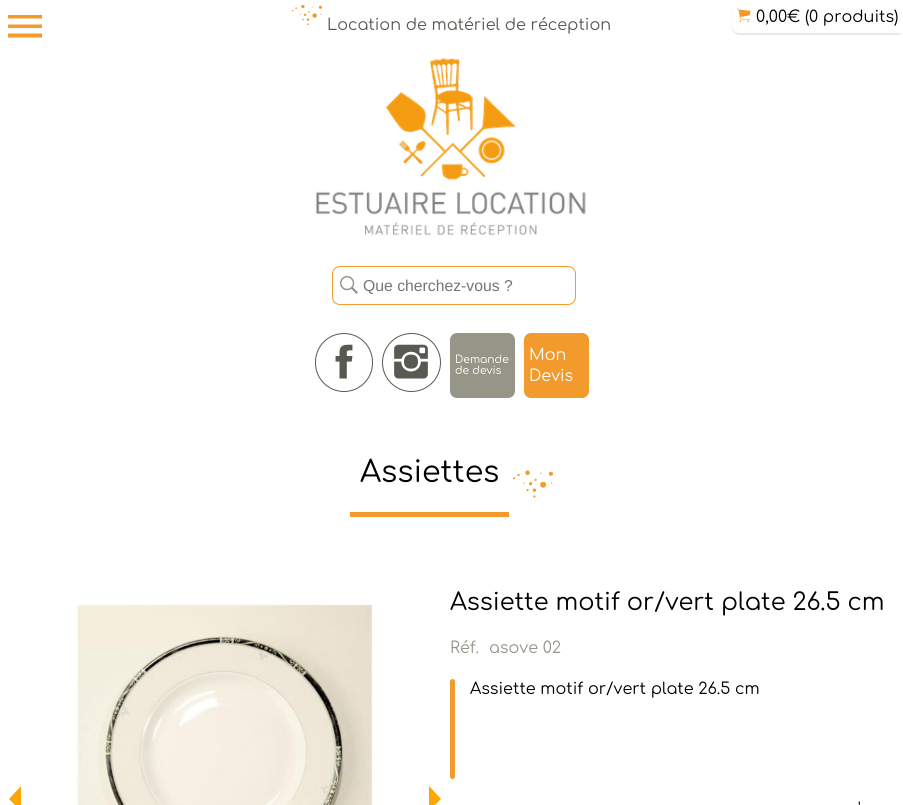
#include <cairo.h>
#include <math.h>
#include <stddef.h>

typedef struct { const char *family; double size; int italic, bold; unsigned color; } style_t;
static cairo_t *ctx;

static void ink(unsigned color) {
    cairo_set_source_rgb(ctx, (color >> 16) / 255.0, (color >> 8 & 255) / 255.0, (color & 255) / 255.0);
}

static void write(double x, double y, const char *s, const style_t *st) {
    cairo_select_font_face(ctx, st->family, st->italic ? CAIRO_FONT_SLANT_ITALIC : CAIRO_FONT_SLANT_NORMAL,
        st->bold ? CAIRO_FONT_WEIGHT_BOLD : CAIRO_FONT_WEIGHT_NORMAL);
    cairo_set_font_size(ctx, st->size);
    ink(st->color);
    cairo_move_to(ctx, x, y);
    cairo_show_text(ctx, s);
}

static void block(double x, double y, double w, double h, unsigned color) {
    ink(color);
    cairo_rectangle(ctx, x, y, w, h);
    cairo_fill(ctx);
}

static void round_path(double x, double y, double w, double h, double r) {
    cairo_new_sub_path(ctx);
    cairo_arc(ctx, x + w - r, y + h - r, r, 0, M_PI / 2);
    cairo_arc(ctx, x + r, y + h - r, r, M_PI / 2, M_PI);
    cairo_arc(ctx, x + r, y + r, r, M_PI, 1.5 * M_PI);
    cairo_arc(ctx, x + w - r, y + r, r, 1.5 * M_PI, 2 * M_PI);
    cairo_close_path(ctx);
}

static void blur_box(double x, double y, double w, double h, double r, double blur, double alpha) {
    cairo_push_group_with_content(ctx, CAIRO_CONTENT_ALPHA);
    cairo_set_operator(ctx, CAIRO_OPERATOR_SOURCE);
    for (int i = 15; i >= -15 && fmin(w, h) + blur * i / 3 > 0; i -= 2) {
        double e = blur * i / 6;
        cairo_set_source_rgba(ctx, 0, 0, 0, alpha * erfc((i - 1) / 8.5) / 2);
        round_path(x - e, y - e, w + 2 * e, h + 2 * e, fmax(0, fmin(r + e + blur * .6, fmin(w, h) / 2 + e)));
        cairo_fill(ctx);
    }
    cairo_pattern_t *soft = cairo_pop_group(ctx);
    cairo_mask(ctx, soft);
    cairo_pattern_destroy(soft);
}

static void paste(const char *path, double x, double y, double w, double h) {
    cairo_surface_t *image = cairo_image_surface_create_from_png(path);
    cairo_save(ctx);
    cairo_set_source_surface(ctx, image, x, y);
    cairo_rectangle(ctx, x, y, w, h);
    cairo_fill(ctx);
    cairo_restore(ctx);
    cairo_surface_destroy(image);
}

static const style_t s1 = {"Comfortaa", 16, 0, 0, 0x585951};
static const style_t s2 = {"Liberation Sans", 15.75, 0, 0, 0x757575};
static const style_t s3 = {"Comfortaa", 10.75, 0, 0, 0xffffff};
static const style_t s4 = {"Comfortaa", 16, 0, 0, 0xffffff};
static const style_t s5 = {"Comfortaa", 16, 0, 0, 0x000000};
static const style_t s6 = {"Comfortaa", 30, 0, 0, 0x000000};
static const style_t s7 = {"Comfortaa", 24, 0, 0, 0x000000};
static const style_t s8 = {"Comfortaa", 16, 0, 0, 0x969688};

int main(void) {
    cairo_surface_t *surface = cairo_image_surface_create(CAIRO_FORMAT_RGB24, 903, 805);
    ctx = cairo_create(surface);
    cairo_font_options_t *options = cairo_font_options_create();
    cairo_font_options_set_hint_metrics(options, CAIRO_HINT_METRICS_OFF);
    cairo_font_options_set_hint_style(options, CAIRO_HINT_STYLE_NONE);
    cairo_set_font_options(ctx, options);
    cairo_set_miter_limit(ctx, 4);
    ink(0xffffff);
    cairo_paint(ctx);
    ink(0xf29a2b);
    cairo_new_path(ctx);
    cairo_move_to(ctx, 8, 37.5);
    cairo_line_to(ctx, 8, 33.5);
    cairo_line_to(ctx, 42, 33.5);
    cairo_line_to(ctx, 42, 37.5);
    cairo_close_path(ctx);
    cairo_move_to(ctx, 8, 28);
    cairo_line_to(ctx, 8, 24.5);
    cairo_line_to(ctx, 42, 24.5);
    cairo_line_to(ctx, 42, 28);
    cairo_close_path(ctx);
    cairo_move_to(ctx, 8, 15);
    cairo_line_to(ctx, 42, 15);
    cairo_line_to(ctx, 42, 18.5);
    cairo_line_to(ctx, 8, 18.5);
    cairo_close_path(ctx);
    cairo_fill(ctx);
    paste("pic1.png", 292, 4, 30, 22);
    write(327, 30, "Location de matériel de réception", &s1);
    paste("pic2.png", 315, 58, 271, 178);
    round_path(332.5, 266.5, 243, 38, 7.5);
    ink(0xf29a2b);
    cairo_set_line_width(ctx, 1);
    cairo_stroke(ctx);
    paste("pic3.png", 340, 276, 18, 18);
    write(363, 291, "Que cherchez-vous ?", &s2);
    round_path(315.5, 333.5, 57, 58, 28.5);
    ink(0x585951);
    cairo_stroke(ctx);
    paste("pic4.png", 335, 344, 18, 35);
    cairo_arc(ctx, 411.5, 362.5, 29, 0, 2 * M_PI);
    cairo_stroke(ctx);
    paste("pic5.png", 394, 344, 34, 35);
    ink(0x969688);
    round_path(450, 333, 65, 65, 7);
    cairo_fill(ctx);
    write(455, 363, "Demande", &s3);
    write(455, 374, "de devis", &s3);
    ink(0xf29a2b);
    round_path(524, 333, 65, 65, 7);
    cairo_fill(ctx);
    write(529, 360, "Mon", &s4);
    write(529, 381, "Devis", &s4);
    ink(0x000000);
    blur_box(732, 0, 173, 35, 8, 0.5, 0.1);
    ink(0xffffff);
    cairo_new_path(ctx);
    cairo_move_to(ctx, 732, 0);
    cairo_line_to(ctx, 903, 0);
    cairo_line_to(ctx, 903, 33);
    cairo_line_to(ctx, 739, 33);
    cairo_curve_to(ctx, 735, 33, 732, 30, 732, 26);
    cairo_close_path(ctx);
    cairo_fill(ctx);
    paste("pic6.png", 737, 8, 14, 14);
    write(756, 22, "0,00€ (0 produits)", &s5);
    block(350, 512, 159, 5, 0xf29a2b);
    write(360, 482, "Assiettes", &s6);
    paste("pic7.png", 513, 470, 40, 28);
    paste("pic8.png", 75, 604, 299, 201);
    ink(0xffa500);
    cairo_new_path(ctx);
    cairo_move_to(ctx, 21, 786);
    cairo_line_to(ctx, 21, 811);
    cairo_line_to(ctx, 9, 799);
    cairo_close_path(ctx);
    cairo_fill(ctx);
    cairo_new_path(ctx);
    cairo_move_to(ctx, 429, 786);
    cairo_line_to(ctx, 441, 799);
    cairo_line_to(ctx, 429, 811);
    cairo_close_path(ctx);
    cairo_fill(ctx);
    write(450, 610, "Assiette motif or/vert plate 26.5 cm", &s7);
    write(450, 653, "Réf.", &s8);
    write(489, 653, "asove 02", &s8);
    ink(0xf29a2b);
    round_path(450, 679, 5, 100, 2.5);
    cairo_fill(ctx);
    write(470, 694, "Assiette motif or/vert plate 26.5 cm", &s5);
    write(858, 814, "'", &s5);
    cairo_surface_write_to_png(surface, "screenshot.png");
    cairo_font_options_destroy(options);
    cairo_destroy(ctx);
    cairo_surface_destroy(surface);
    return 0;
}
